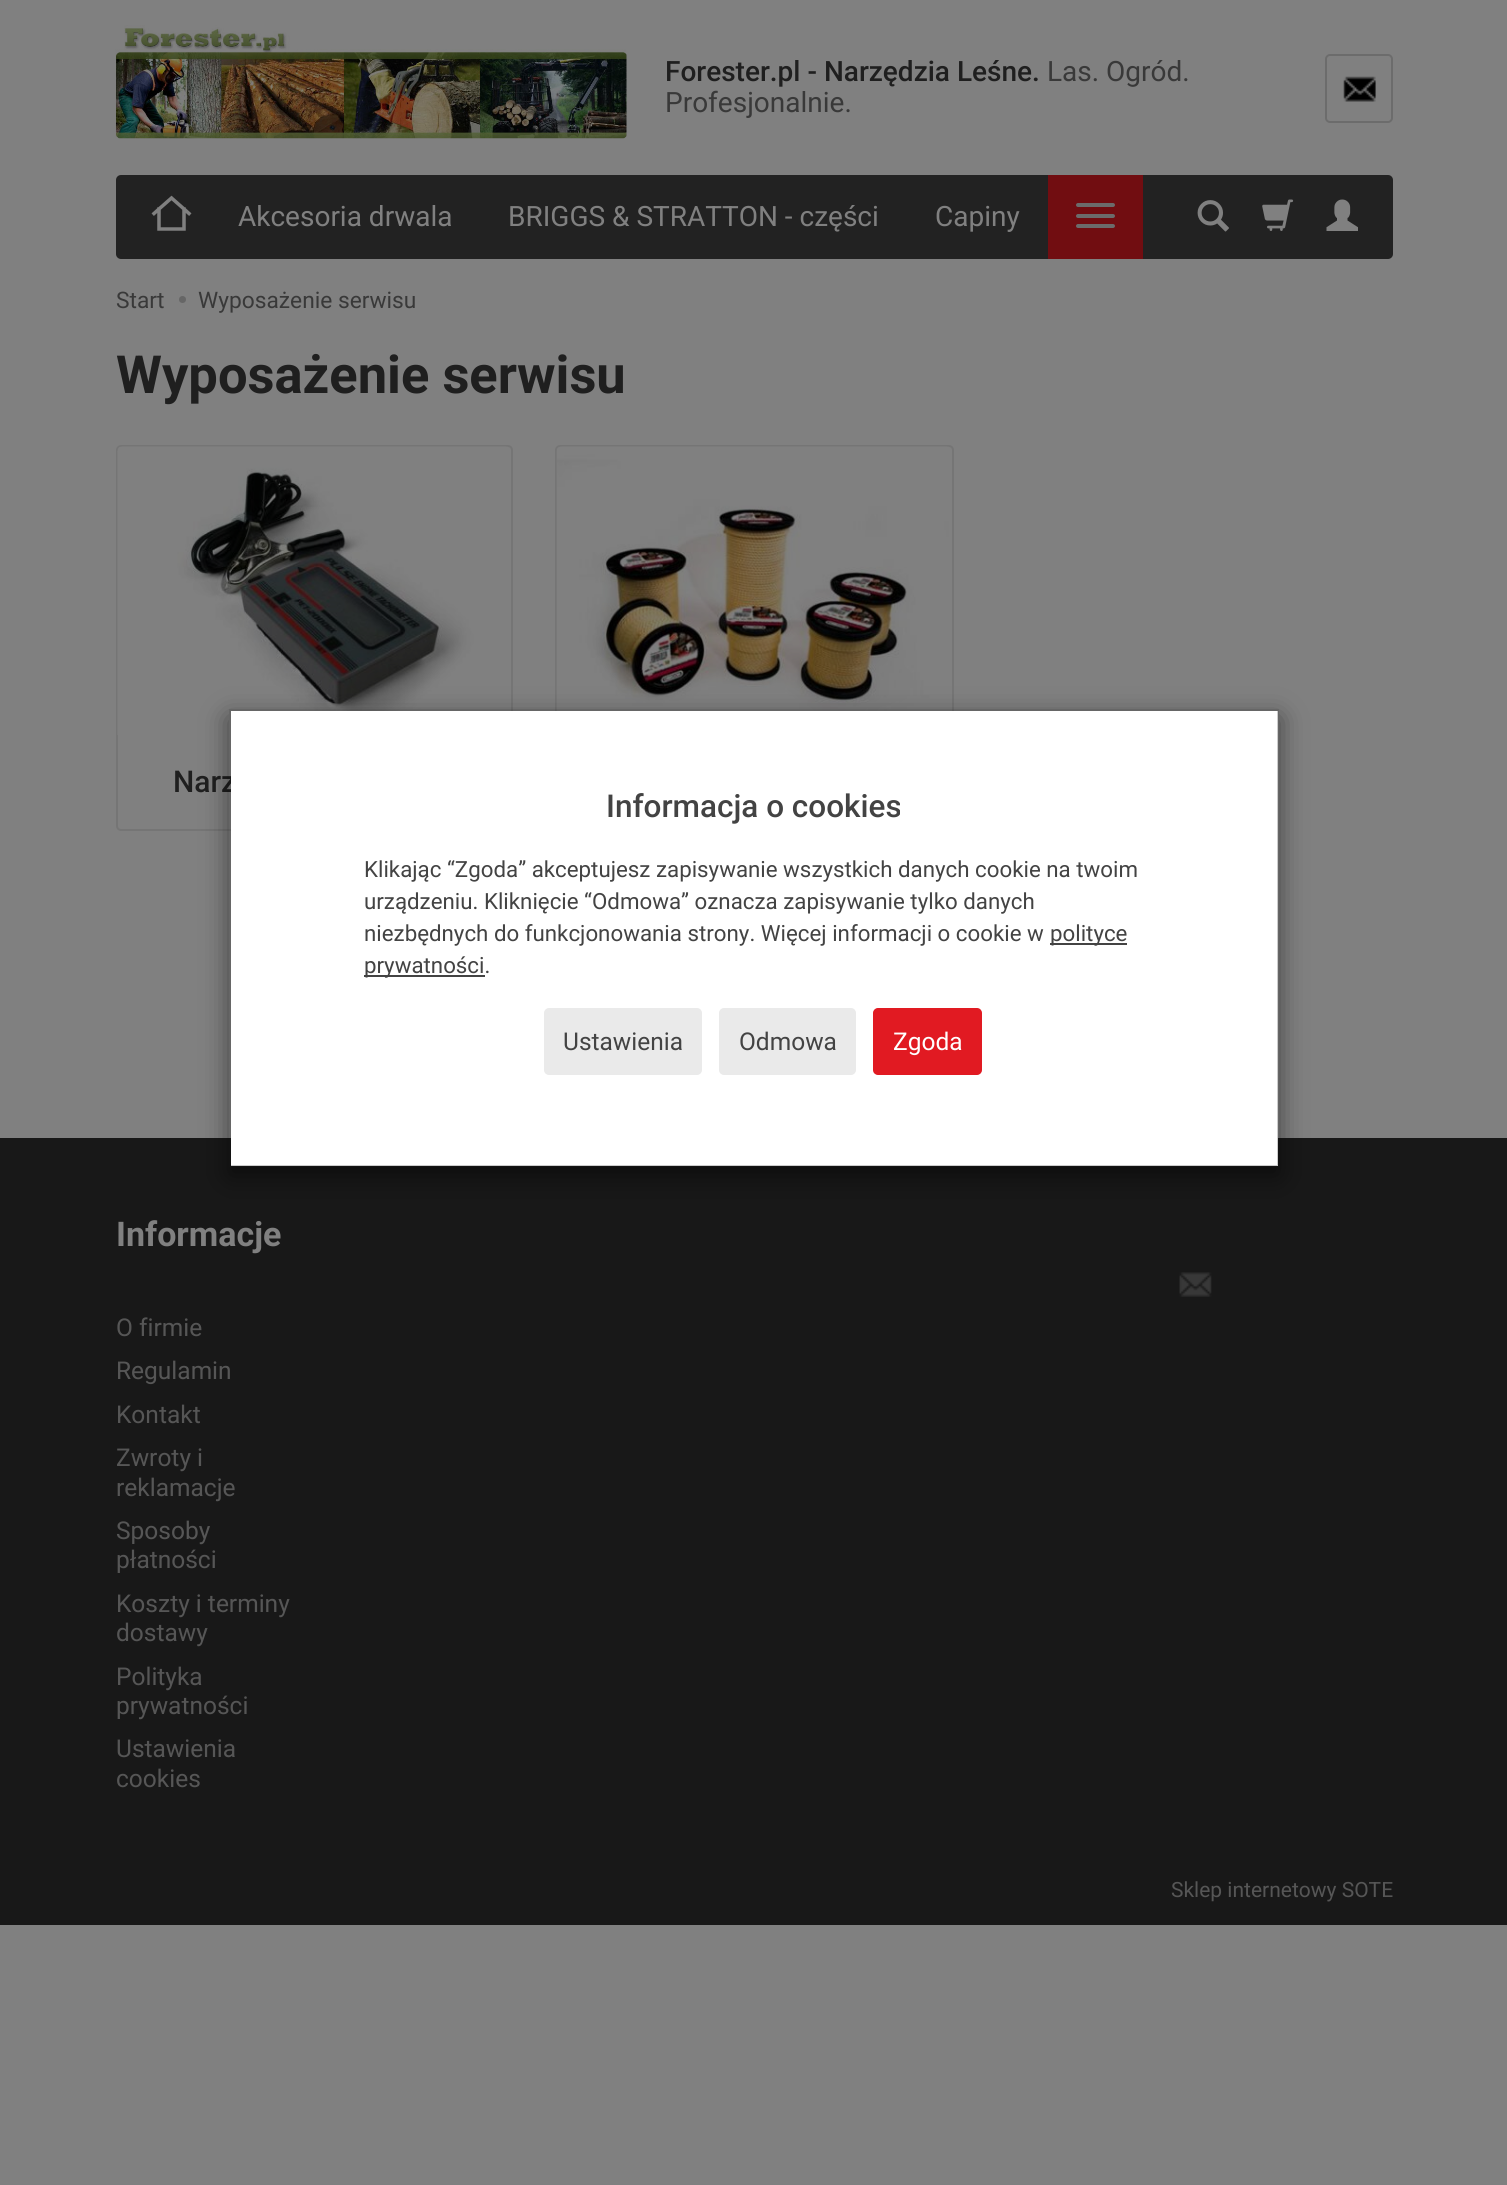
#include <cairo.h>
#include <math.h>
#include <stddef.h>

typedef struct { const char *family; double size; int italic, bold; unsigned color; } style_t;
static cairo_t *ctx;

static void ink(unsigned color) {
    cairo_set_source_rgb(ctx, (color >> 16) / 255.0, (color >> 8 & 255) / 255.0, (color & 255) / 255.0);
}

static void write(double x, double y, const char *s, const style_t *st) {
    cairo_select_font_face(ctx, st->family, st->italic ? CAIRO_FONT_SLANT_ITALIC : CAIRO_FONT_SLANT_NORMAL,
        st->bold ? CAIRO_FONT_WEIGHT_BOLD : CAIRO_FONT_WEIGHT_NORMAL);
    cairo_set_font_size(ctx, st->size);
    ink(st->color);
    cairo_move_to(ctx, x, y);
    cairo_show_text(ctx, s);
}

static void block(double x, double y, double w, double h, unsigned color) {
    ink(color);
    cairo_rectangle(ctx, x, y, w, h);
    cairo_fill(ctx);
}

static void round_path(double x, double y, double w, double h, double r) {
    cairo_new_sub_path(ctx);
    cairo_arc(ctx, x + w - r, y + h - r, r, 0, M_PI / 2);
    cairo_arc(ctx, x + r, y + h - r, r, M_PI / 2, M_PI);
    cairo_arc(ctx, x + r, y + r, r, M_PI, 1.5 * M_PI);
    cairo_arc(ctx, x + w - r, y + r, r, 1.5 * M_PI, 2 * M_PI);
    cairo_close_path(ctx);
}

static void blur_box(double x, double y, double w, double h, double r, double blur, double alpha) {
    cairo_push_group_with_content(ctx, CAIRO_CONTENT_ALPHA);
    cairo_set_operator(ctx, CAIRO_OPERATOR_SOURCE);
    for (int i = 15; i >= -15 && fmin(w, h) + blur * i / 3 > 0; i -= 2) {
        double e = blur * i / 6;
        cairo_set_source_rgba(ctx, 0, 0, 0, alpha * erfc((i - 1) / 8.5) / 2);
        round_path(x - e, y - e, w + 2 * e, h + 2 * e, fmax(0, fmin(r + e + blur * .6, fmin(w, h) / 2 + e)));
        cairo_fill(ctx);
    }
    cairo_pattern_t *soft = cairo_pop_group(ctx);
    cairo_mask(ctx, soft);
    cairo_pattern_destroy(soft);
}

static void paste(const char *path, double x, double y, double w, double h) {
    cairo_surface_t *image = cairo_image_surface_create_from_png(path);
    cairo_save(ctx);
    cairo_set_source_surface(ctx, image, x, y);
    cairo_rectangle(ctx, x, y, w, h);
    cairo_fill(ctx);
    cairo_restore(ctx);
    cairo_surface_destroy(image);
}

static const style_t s1 = {"Roboto Medium", 28, 0, 0, 0x1f1f1f};
static const style_t s2 = {"Roboto", 28, 0, 0, 0x393939};
static const style_t s3 = {"Roboto", 28, 0, 0, 0x808080};
static const style_t s4 = {"Roboto", 22.75, 0, 0, 0x393939};
static const style_t s5 = {"Roboto", 52.5, 0, 1, 0x1f1f1f};
static const style_t s6 = {"Roboto Medium", 30, 0, 0, 0x1f1f1f};
static const style_t s7 = {"Roboto Medium", 31.5, 0, 0, 0x434343};
static const style_t s8 = {"Roboto", 22.3, 0, 0, 0x434343};
static const style_t s9 = {"Roboto", 24.5, 0, 0, 0x434343};
static const style_t s10 = {"Roboto", 24.5, 0, 0, 0xffffff};
static const style_t s11 = {"Roboto", 34, 0, 1, 0x808080};
static const style_t s12 = {"Roboto", 24.5, 0, 0, 0x565656};
static const style_t s13 = {"Roboto", 21, 0, 0, 0x565656};

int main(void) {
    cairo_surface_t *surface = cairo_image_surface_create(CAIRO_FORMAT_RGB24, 1507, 2185);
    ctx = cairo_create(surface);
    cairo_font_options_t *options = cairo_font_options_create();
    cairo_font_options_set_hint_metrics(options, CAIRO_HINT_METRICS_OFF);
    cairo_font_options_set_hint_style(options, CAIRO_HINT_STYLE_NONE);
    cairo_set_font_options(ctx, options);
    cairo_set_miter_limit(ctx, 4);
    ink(0x808080);
    cairo_paint(ctx);
    paste("pic1.png", 115, 25, 512, 114);
    write(665, 81, "Forester.pl - Narzędzia Leśne.", &s1);
    write(1047, 81, "Las. Ogród.", &s2);
    write(665, 112, "Profesjonalnie.", &s2);
    round_path(1326, 55, 66, 67, 4);
    ink(0x6c6c6c);
    cairo_stroke(ctx);
    paste("pic2.png", 1343, 76, 33, 26);
    ink(0x222222);
    round_path(116, 175, 1277, 84, 5);
    cairo_fill(ctx);
    cairo_new_path(ctx);
    cairo_move_to(ctx, 154, 213.5);
    cairo_line_to(ctx, 159, 209);
    cairo_move_to(ctx, 159, 209);
    cairo_line_to(ctx, 171.5, 198);
    cairo_line_to(ctx, 184, 209);
    cairo_move_to(ctx, 159, 209);
    cairo_line_to(ctx, 159, 229);
    cairo_line_to(ctx, 184, 229);
    cairo_line_to(ctx, 184, 209);
    cairo_move_to(ctx, 189, 213.5);
    cairo_line_to(ctx, 184, 209);
    ink(0x808080);
    cairo_set_line_width(ctx, 3.5);
    cairo_set_line_cap(ctx, CAIRO_LINE_CAP_SQUARE);
    cairo_stroke(ctx);
    write(238, 226, "Akcesoria drwala", &s3);
    write(508, 226, "BRIGGS & STRATTON - części", &s3);
    write(935, 226, "Capiny", &s3);
    block(1048, 175, 95, 84, 0x710d11);
    ink(0x6b6b6b);
    round_path(1076, 203, 39, 4, 2);
    cairo_fill(ctx);
    round_path(1076, 214, 39, 4, 2);
    cairo_fill(ctx);
    round_path(1076, 224, 39, 4, 2);
    cairo_fill(ctx);
    paste("pic3.png", 1197, 200, 32, 32);
    paste("pic4.png", 1262, 199, 32, 32);
    paste("pic5.png", 1326, 199, 32, 32);
    write(116, 308, "Start", &s4);
    ink(0x666666);
    cairo_new_path(ctx);
    cairo_arc(ctx, 182.5, 299.5, 3.5, 0, 2 * M_PI);
    cairo_fill(ctx);
    write(198, 308, "Wyposażenie serwisu", &s4);
    write(116, 393, "Wyposażenie serwisu", &s5);
    round_path(117, 446, 395, 384, 4);
    ink(0x757575);
    cairo_set_line_width(ctx, 2);
    cairo_set_line_cap(ctx, CAIRO_LINE_CAP_BUTT);
    cairo_stroke(ctx);
    paste("pic6.png", 117, 446, 391, 289);
    write(173, 792, "Narz", &s6);
    round_path(556, 446, 397, 384, 4);
    ink(0x757575);
    cairo_stroke(ctx);
    paste("pic7.png", 556, 446, 393, 265);
    block(0, 1138, 1507, 787, 0x181818);
    cairo_save(ctx);
    cairo_set_fill_rule(ctx, CAIRO_FILL_RULE_EVEN_ODD);
    cairo_new_path(ctx);
    cairo_move_to(ctx, 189, 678);
    cairo_line_to(ctx, 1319, 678);
    cairo_line_to(ctx, 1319, 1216);
    cairo_line_to(ctx, 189, 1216);
    cairo_close_path(ctx);
    cairo_move_to(ctx, 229, 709);
    cairo_line_to(ctx, 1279, 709);
    cairo_line_to(ctx, 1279, 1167);
    cairo_line_to(ctx, 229, 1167);
    cairo_close_path(ctx);
    cairo_clip(ctx);
    ink(0x000000);
    blur_box(229, 718, 1050, 458, 0, 13, 0.5);
    cairo_restore(ctx);
    block(231, 711, 1047, 455, 0xffffff);
    cairo_rectangle(ctx, 230, 710, 1048, 456);
    cairo_set_source_rgba(ctx, 0, 0, 0, 0.2);
    cairo_stroke(ctx);
    write(606, 817, "Informacja o cookies", &s7);
    write(364, 877, "Klikając “Zgoda” akceptujesz zapisywanie wszystkich danych cookie na twoim", &s8);
    write(364, 909, "urządzeniu. Kliknięcie “Odmowa” oznacza zapisywanie tylko danych", &s8);
    write(364, 941, "niezbędnych do funkcjonowania strony. Więcej informacji o cookie w", &s8);
    block(1050, 943, 77, 2, 0x434343);
    write(1050, 941, "polityce", &s8);
    block(364, 975, 121, 2, 0x434343);
    write(364, 973, "prywatności.", &s8);
    ink(0xeaeaea);
    round_path(545, 1009, 156, 65, 4);
    cairo_fill_preserve(ctx);
    cairo_stroke(ctx);
    write(563, 1050, "Ustawienia", &s9);
    ink(0xeaeaea);
    round_path(720, 1009, 135, 65, 4);
    cairo_fill_preserve(ctx);
    cairo_stroke(ctx);
    write(739, 1050, "Odmowa", &s9);
    ink(0xe11a22);
    round_path(874, 1009, 107, 65, 4);
    cairo_fill_preserve(ctx);
    cairo_stroke(ctx);
    write(893, 1050, "Zgoda", &s10);
    write(116, 1246, "Informacje", &s11);
    write(116, 1336, "O firmie", &s12);
    write(116, 1379, "Regulamin", &s12);
    write(116, 1423, "Kontakt", &s12);
    write(116, 1466, "Zwroty i", &s12);
    write(116, 1496, "reklamacje", &s12);
    write(116, 1539, "Sposoby", &s12);
    write(116, 1568, "płatności", &s12);
    write(116, 1612, "Koszty i terminy", &s12);
    write(116, 1641, "dostawy", &s12);
    write(116, 1685, "Polityka", &s12);
    write(116, 1714, "prywatności", &s12);
    write(116, 1757, "Ustawienia", &s12);
    write(116, 1787, "cookies", &s12);
    paste("pic8.png", 1179, 1272, 33, 25);
    write(1171, 1897, "Sklep internetowy SOTE", &s13);
    cairo_surface_write_to_png(surface, "screenshot.png");
    cairo_font_options_destroy(options);
    cairo_destroy(ctx);
    cairo_surface_destroy(surface);
    return 0;
}
